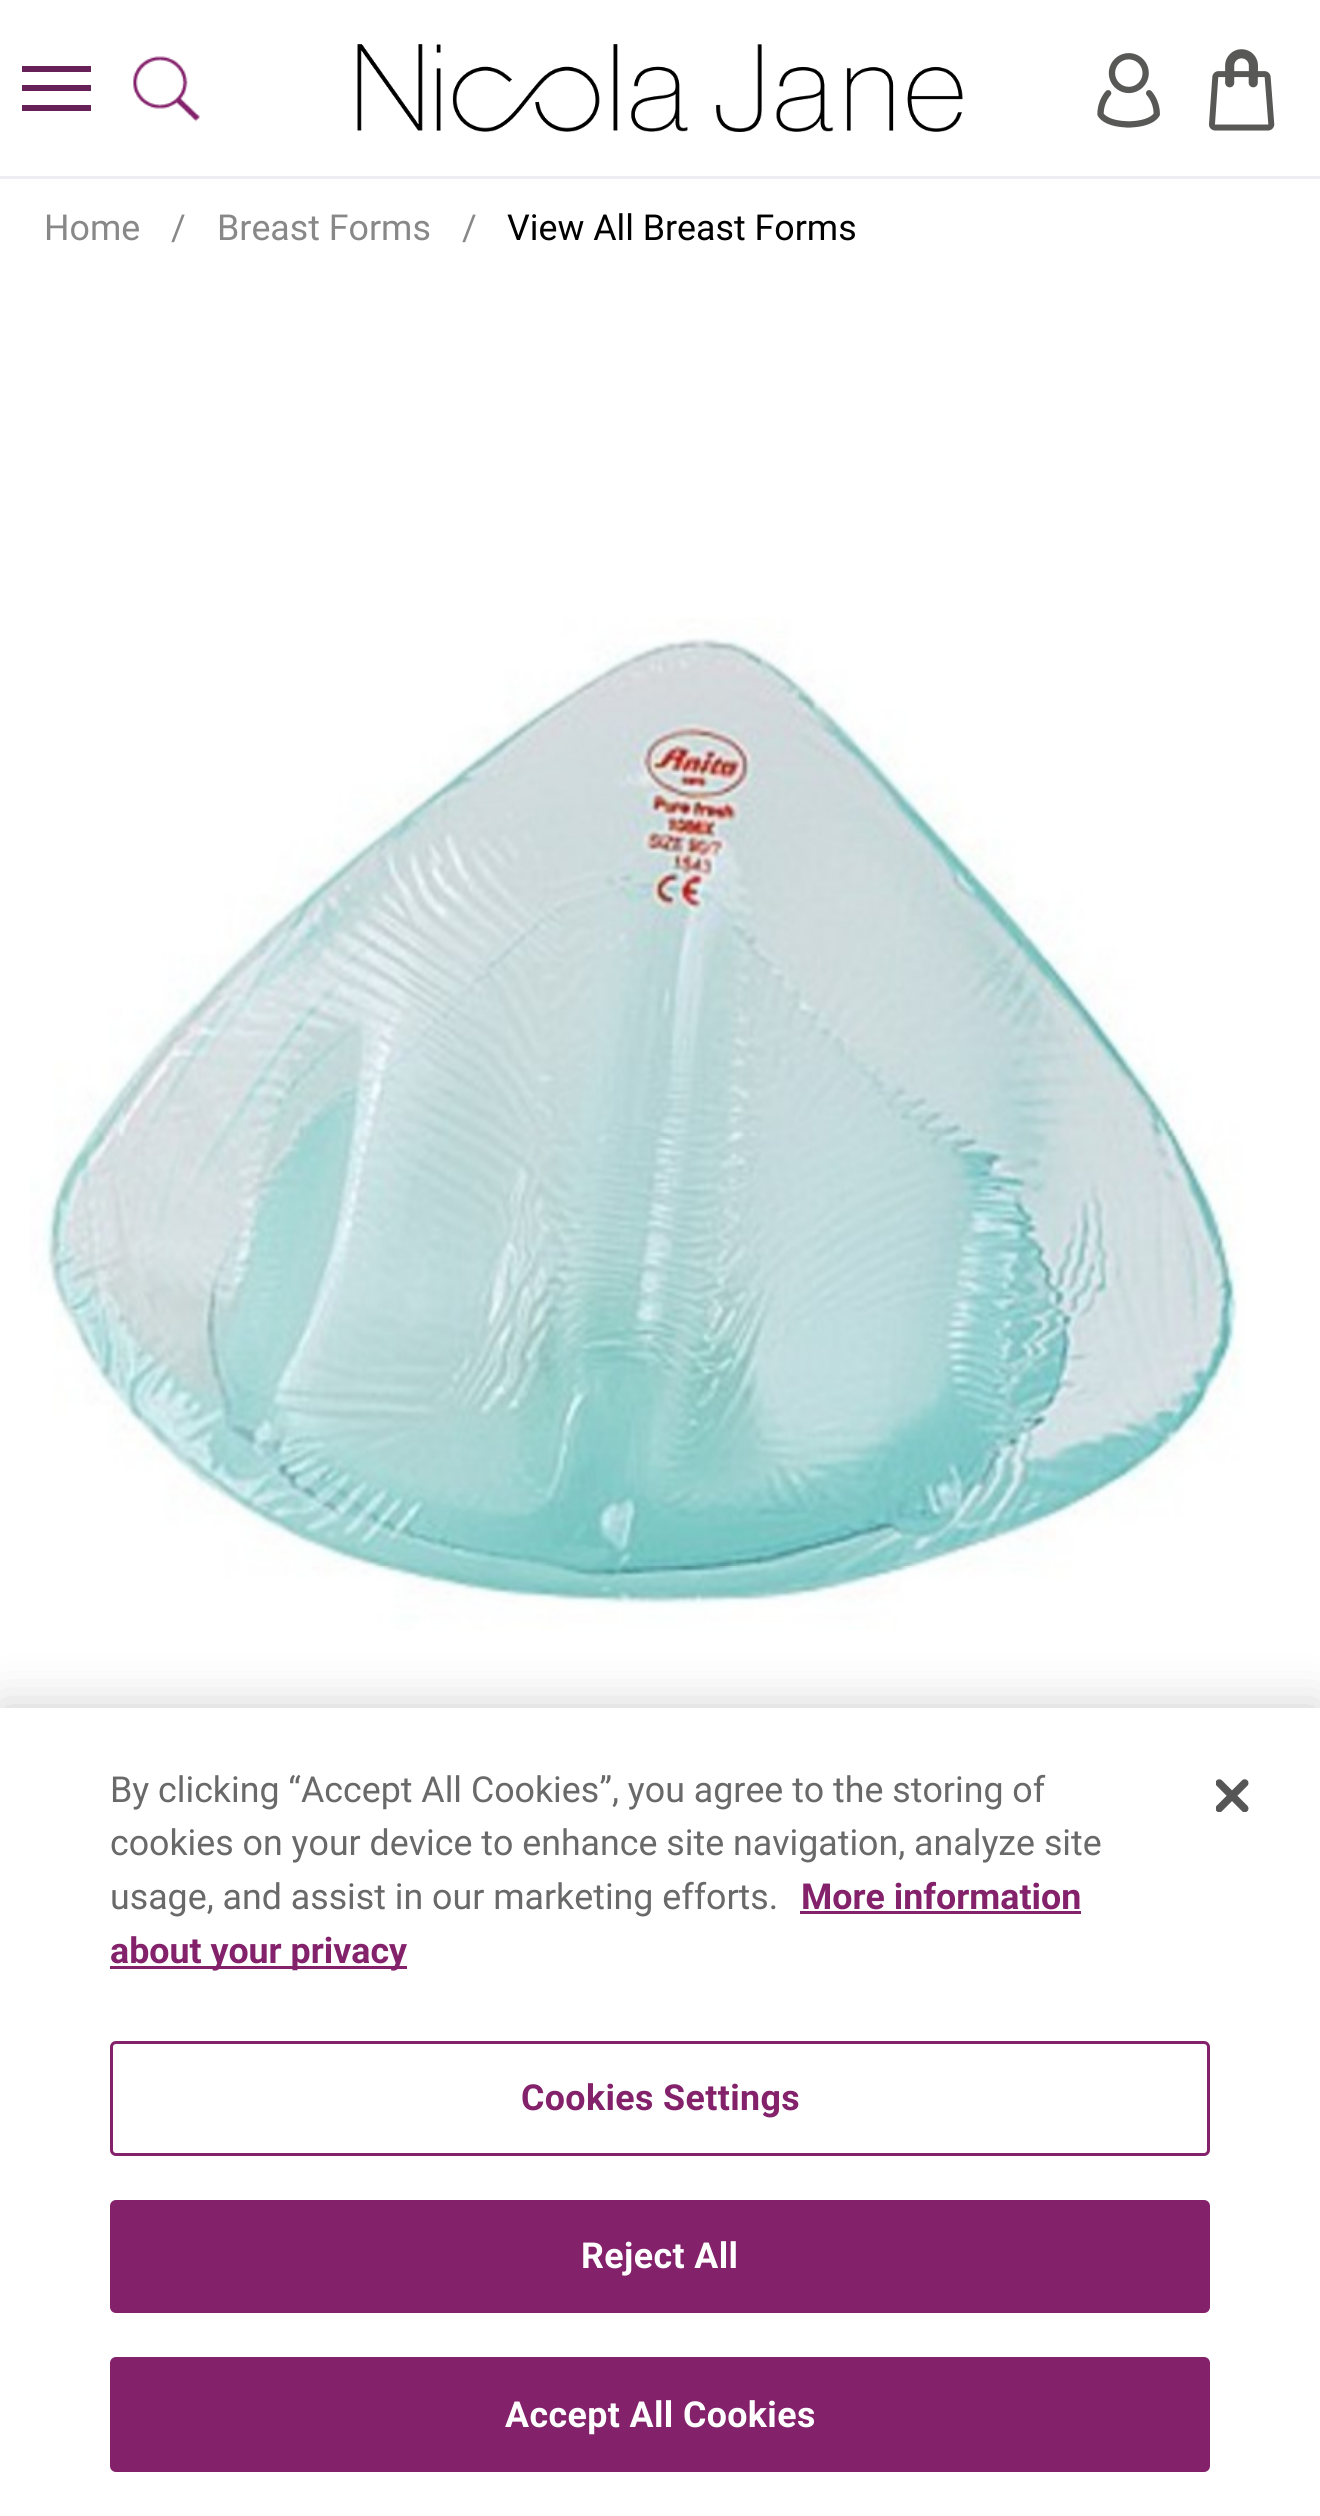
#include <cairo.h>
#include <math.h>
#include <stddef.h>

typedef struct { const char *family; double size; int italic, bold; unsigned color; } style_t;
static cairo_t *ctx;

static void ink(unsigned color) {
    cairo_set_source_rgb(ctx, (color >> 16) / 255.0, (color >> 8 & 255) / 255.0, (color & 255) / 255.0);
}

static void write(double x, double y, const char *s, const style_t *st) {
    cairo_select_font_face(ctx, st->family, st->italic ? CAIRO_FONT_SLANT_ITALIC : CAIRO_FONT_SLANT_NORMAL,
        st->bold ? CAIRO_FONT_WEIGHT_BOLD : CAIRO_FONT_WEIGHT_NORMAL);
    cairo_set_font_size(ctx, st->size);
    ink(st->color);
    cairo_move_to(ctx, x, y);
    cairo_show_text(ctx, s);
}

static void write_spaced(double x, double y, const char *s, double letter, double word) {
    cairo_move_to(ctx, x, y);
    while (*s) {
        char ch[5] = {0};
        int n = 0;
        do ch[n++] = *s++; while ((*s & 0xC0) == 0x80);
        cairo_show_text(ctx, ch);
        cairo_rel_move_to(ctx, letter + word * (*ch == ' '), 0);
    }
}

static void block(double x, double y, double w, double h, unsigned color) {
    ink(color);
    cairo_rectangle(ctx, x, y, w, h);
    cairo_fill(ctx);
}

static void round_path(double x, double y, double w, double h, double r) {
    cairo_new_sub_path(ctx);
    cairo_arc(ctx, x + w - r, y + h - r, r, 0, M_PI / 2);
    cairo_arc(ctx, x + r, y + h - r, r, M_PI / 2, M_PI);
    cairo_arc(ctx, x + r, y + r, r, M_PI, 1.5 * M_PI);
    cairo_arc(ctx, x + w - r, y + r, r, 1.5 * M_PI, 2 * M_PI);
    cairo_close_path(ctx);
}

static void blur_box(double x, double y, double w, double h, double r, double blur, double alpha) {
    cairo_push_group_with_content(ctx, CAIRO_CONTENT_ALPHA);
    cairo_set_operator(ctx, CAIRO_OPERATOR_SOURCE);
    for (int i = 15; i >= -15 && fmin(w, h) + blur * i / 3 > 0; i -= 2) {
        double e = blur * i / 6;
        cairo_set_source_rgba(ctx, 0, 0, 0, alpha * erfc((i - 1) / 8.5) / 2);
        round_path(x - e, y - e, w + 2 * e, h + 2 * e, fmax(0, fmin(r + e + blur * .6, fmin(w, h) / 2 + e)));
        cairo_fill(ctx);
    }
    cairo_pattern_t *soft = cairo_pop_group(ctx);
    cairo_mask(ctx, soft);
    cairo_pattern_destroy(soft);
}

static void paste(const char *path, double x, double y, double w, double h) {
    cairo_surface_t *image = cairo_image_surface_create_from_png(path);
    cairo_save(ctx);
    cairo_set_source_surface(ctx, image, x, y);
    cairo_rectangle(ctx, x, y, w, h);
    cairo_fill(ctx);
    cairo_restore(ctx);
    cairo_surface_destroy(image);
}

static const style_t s1 = {"Roboto", 35.75, 0, 0, 0x888888};
static const style_t s2 = {"Roboto", 35.75, 0, 0, 0x000000};
static const style_t s3 = {"Roboto", 35.75, 0, 0, 0x696969};
static const style_t s4 = {"Roboto", 35.75, 0, 1, 0x84216b};

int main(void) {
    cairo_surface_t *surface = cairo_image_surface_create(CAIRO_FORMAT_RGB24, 1320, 2516);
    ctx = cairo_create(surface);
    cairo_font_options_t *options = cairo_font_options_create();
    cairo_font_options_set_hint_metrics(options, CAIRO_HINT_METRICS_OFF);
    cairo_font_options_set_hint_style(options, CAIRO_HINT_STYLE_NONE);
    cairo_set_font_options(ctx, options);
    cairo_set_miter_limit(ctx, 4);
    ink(0xffffff);
    cairo_paint(ctx);
    block(0, 176, 1320, 3, 0xeeedf3);
    block(22, 66, 69, 6, 0x682059);
    block(22, 85, 69, 6, 0x682059);
    block(22, 105, 69, 6, 0x682059);
    paste("pic1.png", 133, 56, 67, 66);
    paste("pic2.png", 357, 44, 606, 88);
    paste("pic3.png", 1097, 53, 63, 75);
    paste("pic4.png", 1209, 49, 66, 82);
    write(44, 240, "Home", &s1);
    write(171, 240, "/", &s1);
    write(217, 240, "Breast Forms", &s1);
    write(462, 240, "/", &s1);
    write(507, 240, "View All Breast Forms", &s2);
    paste("pic5.png", 30, 618, 1215, 1012);
    ink(0x000000);
    blur_box(0, 1708, 1320, 808, 0, 25, 0.2);
    block(0, 1708, 1320, 808, 0xffffff);
    write(110, 1802, "By clicking “Accept All Cookies”, you agree to the storing of", &s3);
    write(110, 1855, "cookies on your device to enhance site navigation, analyze site", &s3);
    write(110, 1909, "usage, and assist in our marketing efforts.", &s3);
    write(801, 1909, "More information", &s4);
    block(800, 1911, 281, 3, 0x84216b);
    block(110, 1966, 297, 3, 0x84216b);
    write(110, 1963, "about your privacy", &s4);
    round_path(111.5, 2042.5, 1097, 112, 4.5);
    cairo_set_line_width(ctx, 3);
    cairo_stroke(ctx);
    write_spaced(521, 2110, "Cookies Settings", 0.4, 0);
    round_path(111.5, 2201.5, 1097, 110, 4.5);
    cairo_fill_preserve(ctx);
    cairo_stroke(ctx);
    ink(0xffffff);
    write_spaced(581, 2268, "Reject All", 0.4, 0);
    ink(0x84216b);
    round_path(111.5, 2358.5, 1097, 112, 4.5);
    cairo_fill_preserve(ctx);
    cairo_stroke(ctx);
    ink(0xffffff);
    write_spaced(505, 2427, "Accept All Cookies", 0.4, 0);
    paste("pic6.png", 1216, 1779, 33, 33);
    cairo_surface_write_to_png(surface, "screenshot.png");
    cairo_font_options_destroy(options);
    cairo_destroy(ctx);
    cairo_surface_destroy(surface);
    return 0;
}
